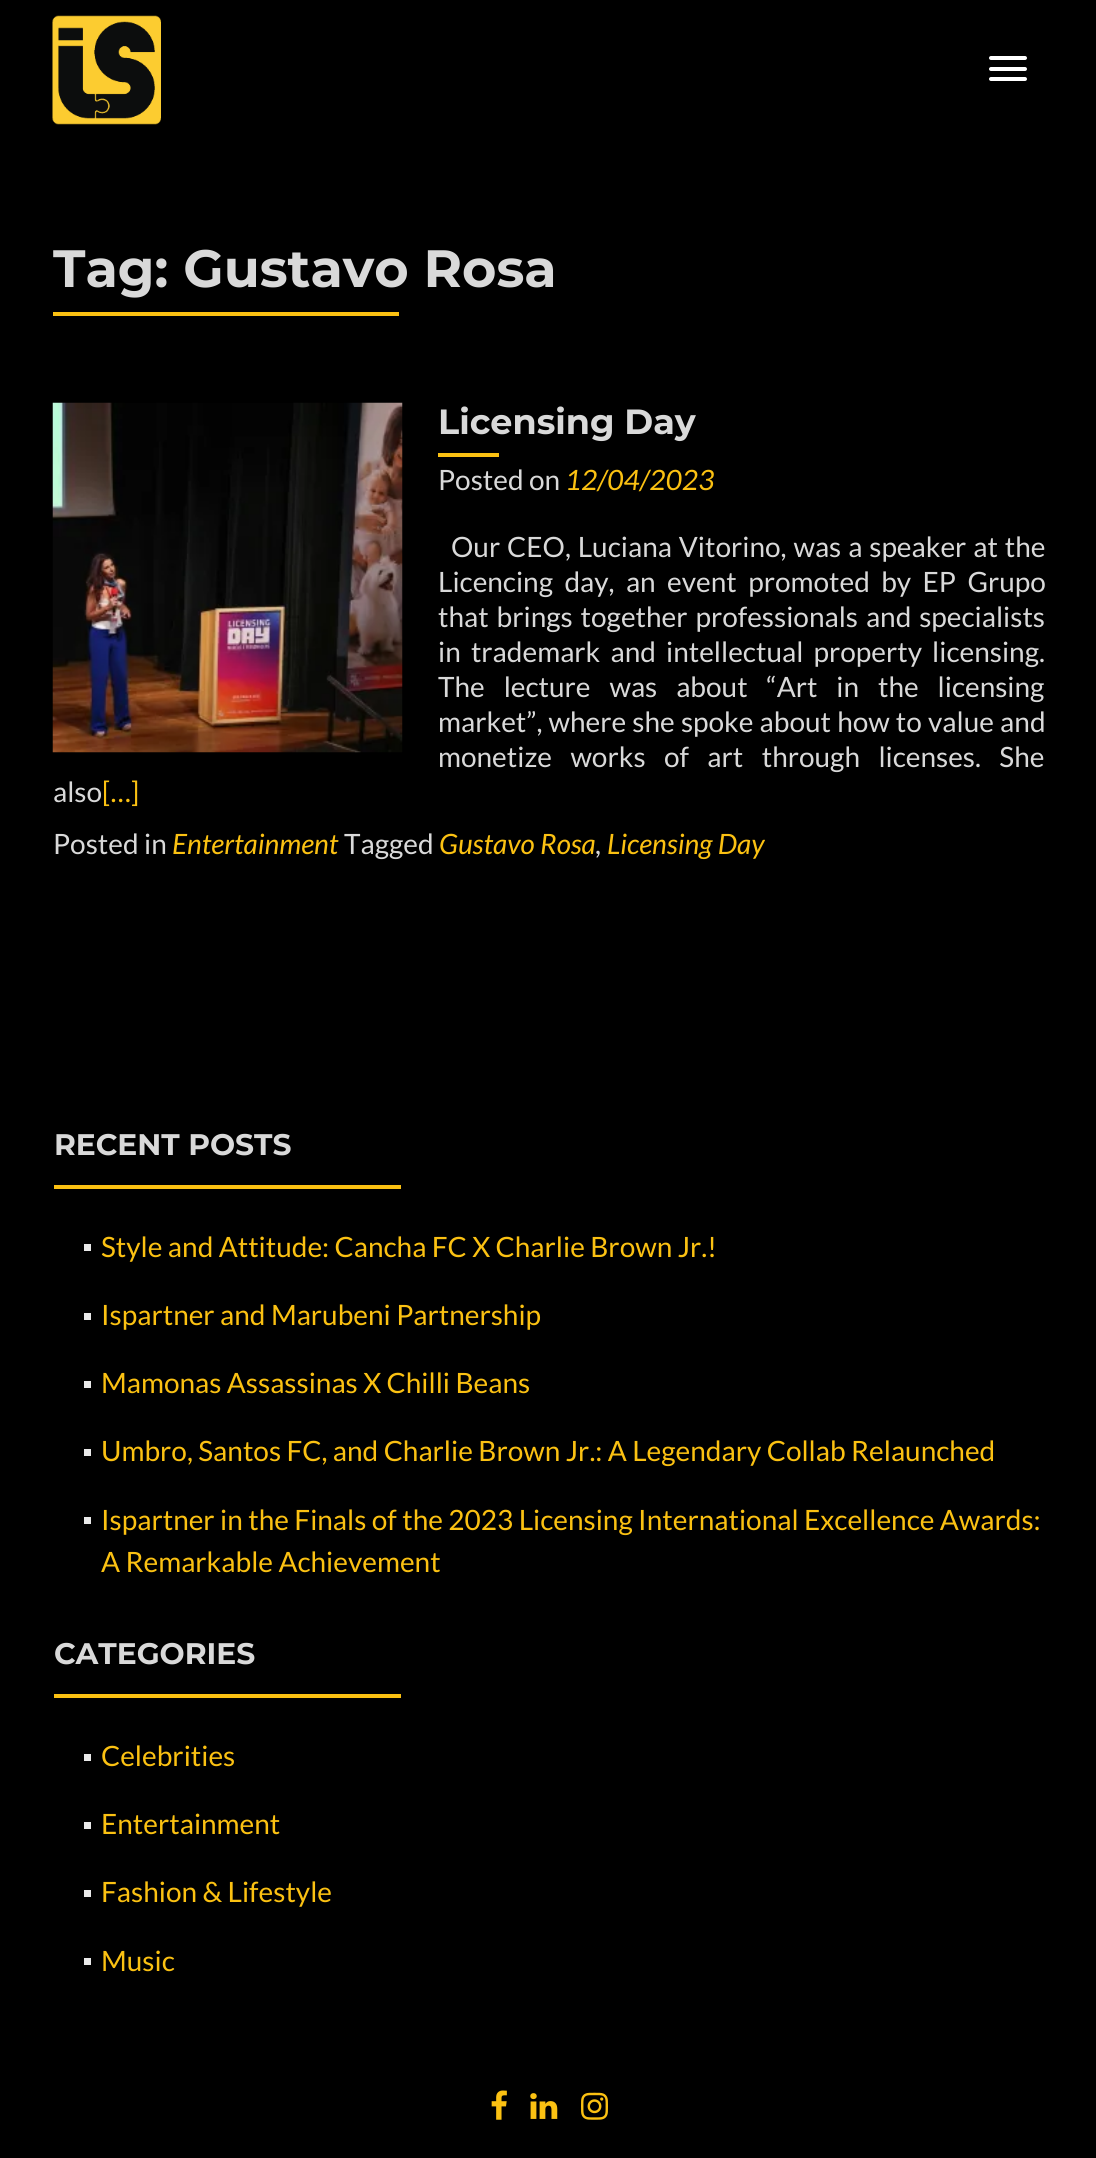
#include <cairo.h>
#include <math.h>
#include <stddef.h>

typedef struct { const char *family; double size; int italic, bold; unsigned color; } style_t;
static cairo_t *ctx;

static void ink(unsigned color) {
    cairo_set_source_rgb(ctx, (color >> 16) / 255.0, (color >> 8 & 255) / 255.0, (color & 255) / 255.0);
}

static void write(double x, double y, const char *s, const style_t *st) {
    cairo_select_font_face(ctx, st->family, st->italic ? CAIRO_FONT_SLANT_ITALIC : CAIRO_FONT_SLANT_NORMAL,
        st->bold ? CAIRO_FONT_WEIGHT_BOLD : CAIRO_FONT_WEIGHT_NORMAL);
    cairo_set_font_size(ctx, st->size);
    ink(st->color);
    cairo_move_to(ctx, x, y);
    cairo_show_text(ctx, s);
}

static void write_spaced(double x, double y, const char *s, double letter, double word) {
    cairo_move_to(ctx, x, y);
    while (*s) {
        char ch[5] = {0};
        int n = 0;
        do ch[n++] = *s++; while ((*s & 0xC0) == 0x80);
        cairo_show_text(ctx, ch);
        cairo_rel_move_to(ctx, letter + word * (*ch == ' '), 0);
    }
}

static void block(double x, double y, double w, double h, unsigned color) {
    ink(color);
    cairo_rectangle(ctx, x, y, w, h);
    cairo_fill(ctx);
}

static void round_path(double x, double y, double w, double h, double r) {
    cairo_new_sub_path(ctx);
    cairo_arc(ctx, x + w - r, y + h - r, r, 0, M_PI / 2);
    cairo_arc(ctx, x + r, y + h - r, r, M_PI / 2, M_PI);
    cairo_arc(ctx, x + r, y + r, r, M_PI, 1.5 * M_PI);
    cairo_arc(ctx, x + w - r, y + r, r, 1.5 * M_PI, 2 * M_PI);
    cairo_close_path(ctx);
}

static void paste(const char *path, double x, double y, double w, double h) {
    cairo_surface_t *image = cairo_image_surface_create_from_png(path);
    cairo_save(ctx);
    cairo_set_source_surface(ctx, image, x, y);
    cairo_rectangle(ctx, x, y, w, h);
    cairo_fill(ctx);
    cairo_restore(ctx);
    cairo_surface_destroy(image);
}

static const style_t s1 = {"Montserrat Thin", 52.5, 0, 0, 0xd9d9d9};
static const style_t s2 = {"Montserrat Thin", 35, 0, 0, 0xd9d9d9};
static const style_t s3 = {"Lato", 28, 0, 0, 0xd9d9d9};
static const style_t s4 = {"Lato", 28, 1, 0, 0xfbc112};
static const style_t s5 = {"Lato", 28, 0, 0, 0xfbc112};
static const style_t s6 = {"Montserrat Thin", 29.75, 0, 0, 0xd9d9d9};

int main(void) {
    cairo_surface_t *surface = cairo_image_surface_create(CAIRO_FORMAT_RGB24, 1096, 2158);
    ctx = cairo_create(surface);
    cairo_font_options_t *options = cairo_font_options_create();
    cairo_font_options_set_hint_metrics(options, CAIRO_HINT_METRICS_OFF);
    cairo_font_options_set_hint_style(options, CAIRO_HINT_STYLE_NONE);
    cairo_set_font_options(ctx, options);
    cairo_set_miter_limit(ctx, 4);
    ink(0x000000);
    cairo_paint(ctx);
    paste("pic1.png", 52, 15, 109, 110);
    ink(0xffffff);
    round_path(989, 56, 38, 4, 2);
    cairo_fill(ctx);
    round_path(989, 67, 38, 4, 2);
    cairo_fill(ctx);
    round_path(989, 77, 38, 4, 2);
    cairo_fill(ctx);
    write(53, 287, "Tag: Gustavo Rosa", &s1);
    block(53, 312, 346, 4, 0xfbc112);
    paste("pic2.png", 52, 402, 351, 351);
    write(438, 434, "Licensing Day", &s2);
    block(438, 453, 61, 4, 0xfbc112);
    write(438, 490, "Posted on", &s3);
    write(565, 490, "12/04/2023", &s4);
    cairo_select_font_face(ctx, "Lato", CAIRO_FONT_SLANT_NORMAL, CAIRO_FONT_WEIGHT_NORMAL);
    ink(0xd9d9d9);
    write_spaced(451, 557, "Our CEO, Luciana Vitorino, was a speaker at the", 0, 1.5);
    write_spaced(438, 592, "Licencing day, an event promoted by EP Grupo", 0, 6);
    write_spaced(438, 627, "that brings together professionals and specialists", 0, 2.5);
    write_spaced(438, 662, "in trademark and intellectual property licensing.", 0, 4.75);
    write_spaced(438, 697, "The lecture was about “Art in the licensing", 0, 13.5);
    write_spaced(438, 732, "market”, where she spoke about how to value and", 0, 0.75);
    write_spaced(438, 767, "monetize works of art through licenses. She", 0, 13);
    write(53, 802, "also", &s3);
    write(102, 802, "[…]", &s5);
    write(53, 854, "Posted in", &s3);
    write(172, 854, "Entertainment", &s4);
    write(344, 854, "Tagged", &s3);
    write(439, 854, "Gustavo Rosa", &s4);
    write(595, 854, ",", &s3);
    write(607, 854, "Licensing Day", &s4);
    write(54, 1155, "RECENT POSTS", &s6);
    block(54, 1185, 347, 4, 0xfbc112);
    block(84, 1244, 7, 7, 0xe9e9e9);
    write(101, 1257, "Style and Attitude: Cancha FC X Charlie Brown Jr.!", &s5);
    block(84, 1313, 7, 7, 0xe9e9e9);
    write(101, 1325, "Ispartner and Marubeni Partnership", &s5);
    block(84, 1381, 7, 7, 0xe9e9e9);
    write(101, 1393, "Mamonas Assassinas X Chilli Beans", &s5);
    block(84, 1449, 7, 7, 0xe9e9e9);
    write(101, 1461, "Umbro, Santos FC, and Charlie Brown Jr.: A Legendary Collab Relaunched", &s5);
    block(84, 1517, 7, 7, 0xe9e9e9);
    write(101, 1530, "Ispartner in the Finals of the 2023 Licensing International Excellence Awards:", &s5);
    write(101, 1572, "A Remarkable Achievement", &s5);
    write(54, 1664, "CATEGORIES", &s6);
    block(54, 1694, 347, 4, 0xfbc112);
    block(84, 1754, 7, 7, 0xe9e9e9);
    write(101, 1766, "Celebrities", &s5);
    block(84, 1822, 7, 7, 0xe9e9e9);
    write(101, 1834, "Entertainment", &s5);
    block(84, 1890, 7, 7, 0xe9e9e9);
    write(101, 1902, "Fashion & Lifestyle", &s5);
    block(84, 1958, 7, 7, 0xe9e9e9);
    write(101, 1971, "Music", &s5);
    paste("pic3.png", 491, 2090, 16, 30);
    paste("pic4.png", 530, 2093, 28, 26);
    paste("pic5.png", 581, 2092, 27, 28);
    cairo_surface_write_to_png(surface, "screenshot.png");
    cairo_font_options_destroy(options);
    cairo_destroy(ctx);
    cairo_surface_destroy(surface);
    return 0;
}
